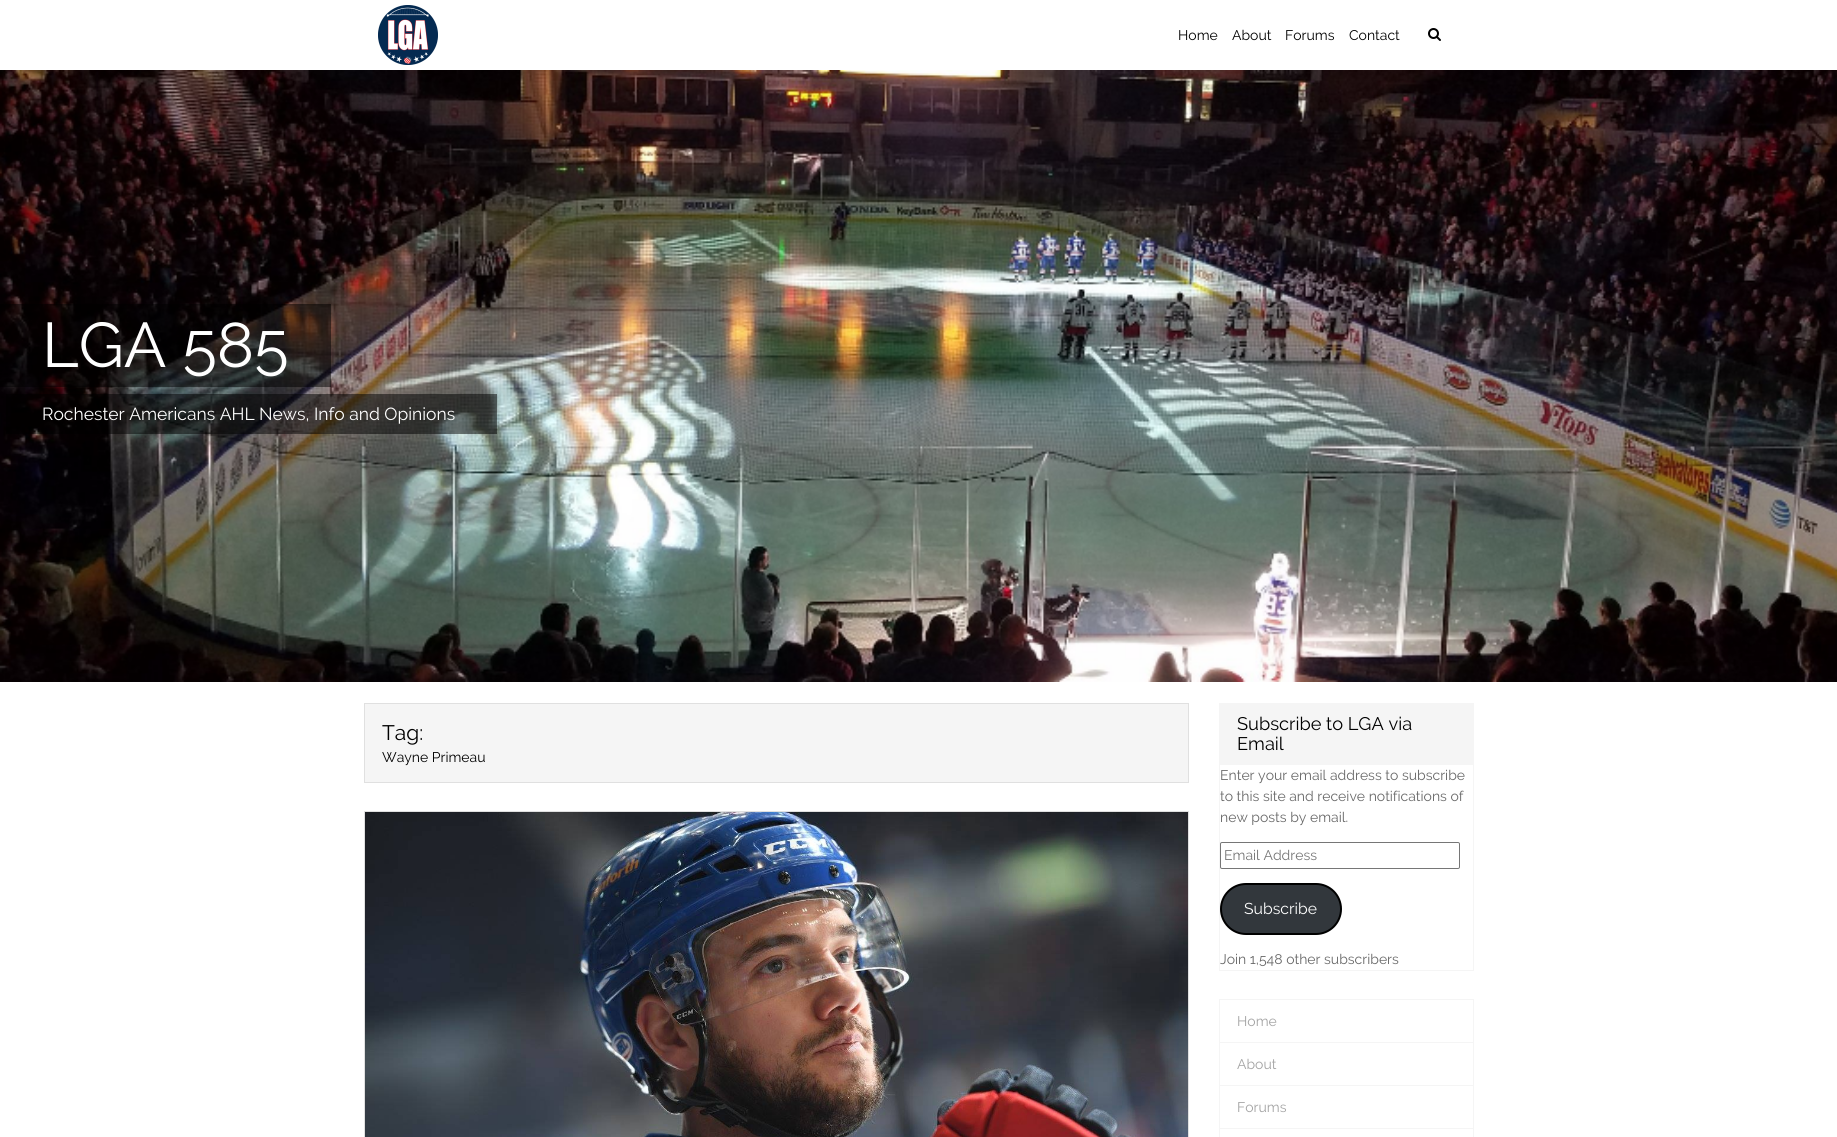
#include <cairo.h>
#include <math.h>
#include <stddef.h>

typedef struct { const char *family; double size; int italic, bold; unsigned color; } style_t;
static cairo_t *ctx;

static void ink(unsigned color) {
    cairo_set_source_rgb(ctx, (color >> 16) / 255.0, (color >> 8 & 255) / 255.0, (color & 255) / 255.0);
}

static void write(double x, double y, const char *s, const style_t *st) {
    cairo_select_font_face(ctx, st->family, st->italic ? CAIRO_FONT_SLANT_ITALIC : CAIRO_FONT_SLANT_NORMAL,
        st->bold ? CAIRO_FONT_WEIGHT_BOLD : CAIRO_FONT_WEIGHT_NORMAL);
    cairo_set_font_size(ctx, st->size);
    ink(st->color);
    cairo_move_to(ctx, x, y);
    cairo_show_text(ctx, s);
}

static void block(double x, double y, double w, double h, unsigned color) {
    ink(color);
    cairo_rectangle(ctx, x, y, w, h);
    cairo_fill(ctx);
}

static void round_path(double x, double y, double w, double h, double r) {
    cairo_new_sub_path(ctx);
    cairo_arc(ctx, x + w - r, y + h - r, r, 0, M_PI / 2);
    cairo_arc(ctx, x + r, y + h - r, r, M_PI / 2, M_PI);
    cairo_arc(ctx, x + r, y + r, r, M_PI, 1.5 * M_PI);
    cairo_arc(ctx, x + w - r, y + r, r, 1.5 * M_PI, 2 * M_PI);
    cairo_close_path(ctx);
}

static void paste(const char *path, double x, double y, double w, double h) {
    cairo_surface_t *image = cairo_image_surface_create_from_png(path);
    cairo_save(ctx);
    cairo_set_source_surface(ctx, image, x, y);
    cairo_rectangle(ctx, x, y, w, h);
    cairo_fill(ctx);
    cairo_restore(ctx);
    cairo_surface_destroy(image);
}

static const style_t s1 = {"Raleway", 14, 0, 0, 0x000000};
static const style_t s2 = {"Raleway", 63, 0, 0, 0xffffff};
static const style_t s3 = {"Raleway", 17.5, 0, 0, 0xffffff};
static const style_t s4 = {"Raleway", 21, 0, 0, 0x000000};
static const style_t s5 = {"Raleway", 18.25, 0, 0, 0x000000};
static const style_t s6 = {"Raleway", 14, 0, 0, 0x686868};
static const style_t s7 = {"Raleway", 14, 0, 0, 0x757575};
static const style_t s8 = {"Raleway", 15.75, 0, 0, 0xffffff};
static const style_t s9 = {"Raleway", 14, 0, 0, 0xa3a3a3};

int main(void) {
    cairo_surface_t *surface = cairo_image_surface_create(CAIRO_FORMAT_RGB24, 1837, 1137);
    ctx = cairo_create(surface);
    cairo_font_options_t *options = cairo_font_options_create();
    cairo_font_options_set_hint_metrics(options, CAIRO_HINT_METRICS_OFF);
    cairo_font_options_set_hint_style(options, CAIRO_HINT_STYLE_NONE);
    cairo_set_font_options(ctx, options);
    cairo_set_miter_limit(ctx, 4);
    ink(0xffffff);
    cairo_paint(ctx);
    paste("pic1.png", 378, 5, 60, 60);
    write(1178, 40, "Home", &s1);
    write(1232, 40, "About", &s1);
    write(1285, 40, "Forums", &s1);
    write(1349, 40, "Contact", &s1);
    paste("pic2.png", 1428, 28, 13, 13);
    paste("pic3.png", 0, 70, 1837, 612);
    cairo_set_source_rgba(ctx, 0, 0, 0, 0.5);
    cairo_rectangle(ctx, 0, 304, 331, 83);
    cairo_fill(ctx);
    write(42, 367, "LGA 585", &s2);
    cairo_set_source_rgba(ctx, 0, 0, 0, 0.5);
    cairo_rectangle(ctx, 6, 394, 491, 40);
    cairo_fill(ctx);
    write(42, 420, "Rochester Americans AHL News, Info and Opinions", &s3);
    ink(0xf5f5f5);
    cairo_rectangle(ctx, 364.5, 703.5, 824, 79);
    cairo_fill_preserve(ctx);
    ink(0xe0e0e0);
    cairo_set_line_width(ctx, 1);
    cairo_stroke(ctx);
    write(382, 740, "Tag:", &s4);
    write(382, 762, "Wayne Primeau", &s1);
    cairo_rectangle(ctx, 364.5, 811.5, 824, 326);
    ink(0xe0e0e0);
    cairo_stroke(ctx);
    paste("pic4.png", 365, 812, 823, 325);
    cairo_rectangle(ctx, 1219.5, 703.5, 254, 267);
    ink(0xf5f5f5);
    cairo_stroke(ctx);
    block(1220, 704, 253, 61, 0xf5f5f5);
    write(1237, 730, "Subscribe to LGA via", &s5);
    write(1237, 750, "Email", &s5);
    write(1220, 780, "Enter your email address to subscribe", &s6);
    write(1220, 801, "to this site and receive notifications of", &s6);
    write(1220, 822, "new posts by email.", &s6);
    round_path(1220.5, 842.5, 239, 26, 1.5);
    ink(0x767676);
    cairo_stroke(ctx);
    write(1224, 860, "Email Address", &s7);
    ink(0x32373c);
    round_path(1221, 884, 120, 50, 25);
    cairo_fill_preserve(ctx);
    ink(0x000000);
    cairo_set_line_width(ctx, 2);
    cairo_stroke(ctx);
    write(1244, 914, "Subscribe", &s8);
    write(1220, 964, "Join 1,548 other subscribers", &s6);
    cairo_rectangle(ctx, 1219.5, 999.5, 254, 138);
    ink(0xf5f5f5);
    cairo_set_line_width(ctx, 1);
    cairo_stroke(ctx);
    write(1237, 1026, "Home", &s9);
    block(1220, 1042, 253, 1, 0xf5f5f5);
    write(1237, 1069, "About", &s9);
    block(1220, 1085, 253, 1, 0xf5f5f5);
    write(1237, 1112, "Forums", &s9);
    block(1220, 1128, 253, 1, 0xf5f5f5);
    cairo_surface_write_to_png(surface, "screenshot.png");
    cairo_font_options_destroy(options);
    cairo_destroy(ctx);
    cairo_surface_destroy(surface);
    return 0;
}
